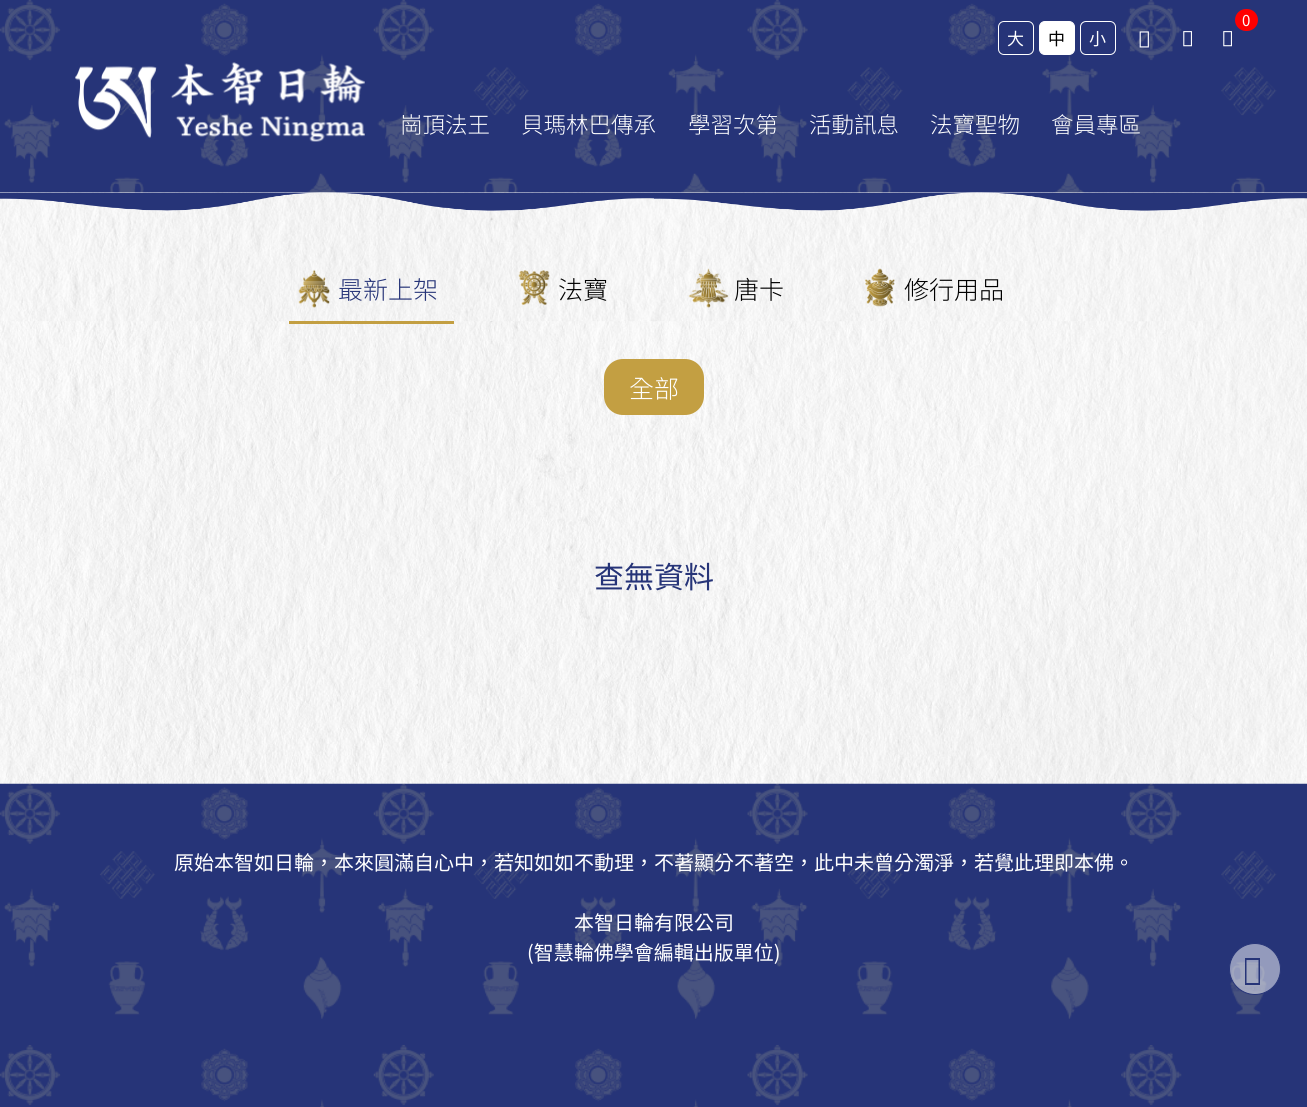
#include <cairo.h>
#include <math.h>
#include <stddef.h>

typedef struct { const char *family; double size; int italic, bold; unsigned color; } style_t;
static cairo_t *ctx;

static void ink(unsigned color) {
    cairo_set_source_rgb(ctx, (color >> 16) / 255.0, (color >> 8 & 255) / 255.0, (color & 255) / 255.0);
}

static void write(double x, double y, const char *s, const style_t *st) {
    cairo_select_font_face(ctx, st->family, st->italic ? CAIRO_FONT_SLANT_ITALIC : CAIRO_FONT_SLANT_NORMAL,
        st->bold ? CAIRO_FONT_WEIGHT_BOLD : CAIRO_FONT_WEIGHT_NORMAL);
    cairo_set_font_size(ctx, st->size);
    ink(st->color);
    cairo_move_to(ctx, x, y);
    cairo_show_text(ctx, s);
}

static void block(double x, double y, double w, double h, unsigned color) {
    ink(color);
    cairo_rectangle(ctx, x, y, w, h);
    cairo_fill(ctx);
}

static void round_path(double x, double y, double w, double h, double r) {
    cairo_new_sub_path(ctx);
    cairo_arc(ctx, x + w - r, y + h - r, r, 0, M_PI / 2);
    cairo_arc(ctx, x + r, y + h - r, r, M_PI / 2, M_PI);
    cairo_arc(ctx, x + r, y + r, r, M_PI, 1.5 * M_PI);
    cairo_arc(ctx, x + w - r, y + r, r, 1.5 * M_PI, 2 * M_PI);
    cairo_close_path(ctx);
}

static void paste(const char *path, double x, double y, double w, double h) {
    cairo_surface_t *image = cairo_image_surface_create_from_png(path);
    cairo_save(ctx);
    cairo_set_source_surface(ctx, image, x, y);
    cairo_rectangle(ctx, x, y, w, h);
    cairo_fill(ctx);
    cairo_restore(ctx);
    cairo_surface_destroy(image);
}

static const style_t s1 = {"Noto Sans TC", 15, 0, 0, 0xffffff};
static const style_t s2 = {"Noto Sans TC", 17, 0, 0, 0xffffff};
static const style_t s3 = {"Noto Sans TC", 17, 0, 0, 0x000000};
static const style_t s4 = {"Noto Sans TC Light", 22.5, 0, 0, 0xffffff};
static const style_t s5 = {"Noto Sans TC Light", 25, 0, 0, 0x263478};
static const style_t s6 = {"Noto Sans TC Light", 25, 0, 0, 0x000000};
static const style_t s7 = {"Noto Sans TC Light", 25, 0, 0, 0xffffff};
static const style_t s8 = {"Noto Sans TC", 30, 0, 0, 0x263478};
static const style_t s9 = {"Noto Sans TC", 20, 0, 0, 0xffffff};

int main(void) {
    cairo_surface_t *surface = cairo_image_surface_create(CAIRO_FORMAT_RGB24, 1307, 1107);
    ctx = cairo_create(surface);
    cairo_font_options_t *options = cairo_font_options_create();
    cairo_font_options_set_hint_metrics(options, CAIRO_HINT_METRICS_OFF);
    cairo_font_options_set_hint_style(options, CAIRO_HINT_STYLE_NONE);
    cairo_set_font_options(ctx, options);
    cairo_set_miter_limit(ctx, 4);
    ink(0xffffff);
    cairo_paint(ctx);
    paste("pic1.png", 0, 0, 1307, 1107);
    ink(0xff0000);
    round_path(1235, 9, 23, 22, 11);
    cairo_fill(ctx);
    write(1242, 26, "0", &s1);
    paste("pic2.png", 1223, 31, 9, 16);
    round_path(998.5, 21.5, 35, 33, 5.5);
    cairo_set_line_width(ctx, 1);
    cairo_stroke(ctx);
    write(1007, 45, "大", &s2);
    round_path(1039.5, 21.5, 35, 33, 5.5);
    cairo_fill_preserve(ctx);
    cairo_stroke(ctx);
    write(1048, 45, "中", &s3);
    round_path(1080.5, 21.5, 35, 33, 5.5);
    ink(0xffffff);
    cairo_stroke(ctx);
    write(1089, 45, "小", &s2);
    paste("pic3.png", 1139, 31, 10, 17);
    paste("pic2.png", 1183, 31, 9, 16);
    paste("pic4.png", 75, 62, 290, 80);
    write(400, 133, "崗頂法王", &s4);
    write(521, 133, "貝瑪林巴傳承", &s4);
    write(688, 133, "學習次第", &s4);
    write(809, 133, "活動訊息", &s4);
    write(930, 133, "法寶聖物", &s4);
    write(1051, 133, "會員專區", &s4);
    paste("pic5.png", 0, 192, 1307, 592);
    block(0, 193, 1307, 18, 0x263478);
    paste("pic6.png", 0, 192, 1307, 130);
    paste("pic7.png", 298, 270, 32, 38);
    block(289, 321, 165, 3, 0xc39f42);
    write(338, 299, "最新上架", &s5);
    paste("pic8.png", 518, 270, 32, 35);
    write(558, 299, "法寶", &s6);
    paste("pic9.png", 688, 268, 41, 40);
    write(734, 299, "唐卡", &s6);
    paste("pic10.png", 865, 268, 30, 39);
    write(904, 299, "修行用品", &s6);
    ink(0xc39f42);
    round_path(604, 359, 100, 56, 19);
    cairo_fill(ctx);
    write(629, 398, "全部", &s7);
    write(594, 588, "查無資料", &s8);
    write(174, 870, "原始本智如日輪，本來圓滿自心中，若知如如不動理，不著顯分不著空，此中未曾分濁淨，若覺此理即本佛。", &s9);
    write(574, 930, "本智日輪有限公司", &s9);
    write(527, 960, "(智慧輪佛學會編輯出版單位)", &s9);
    cairo_set_source_rgba(ctx, 1, 1, 1, 0.5);
    cairo_new_path(ctx);
    cairo_arc(ctx, 1255, 969, 25.5, 0, 2 * M_PI);
    cairo_fill_preserve(ctx);
    ink(0x263478);
    cairo_stroke(ctx);
    cairo_new_path(ctx);
    cairo_move_to(ctx, 1245, 985);
    cairo_line_to(ctx, 1245, 958);
    cairo_line_to(ctx, 1260, 958);
    cairo_line_to(ctx, 1260, 985);
    cairo_close_path(ctx);
    cairo_move_to(ctx, 1246.5, 983);
    cairo_line_to(ctx, 1258.5, 983);
    cairo_line_to(ctx, 1258.5, 960);
    cairo_line_to(ctx, 1246.5, 960);
    cairo_close_path(ctx);
    cairo_fill(ctx);
    cairo_surface_write_to_png(surface, "screenshot.png");
    cairo_font_options_destroy(options);
    cairo_destroy(ctx);
    cairo_surface_destroy(surface);
    return 0;
}
